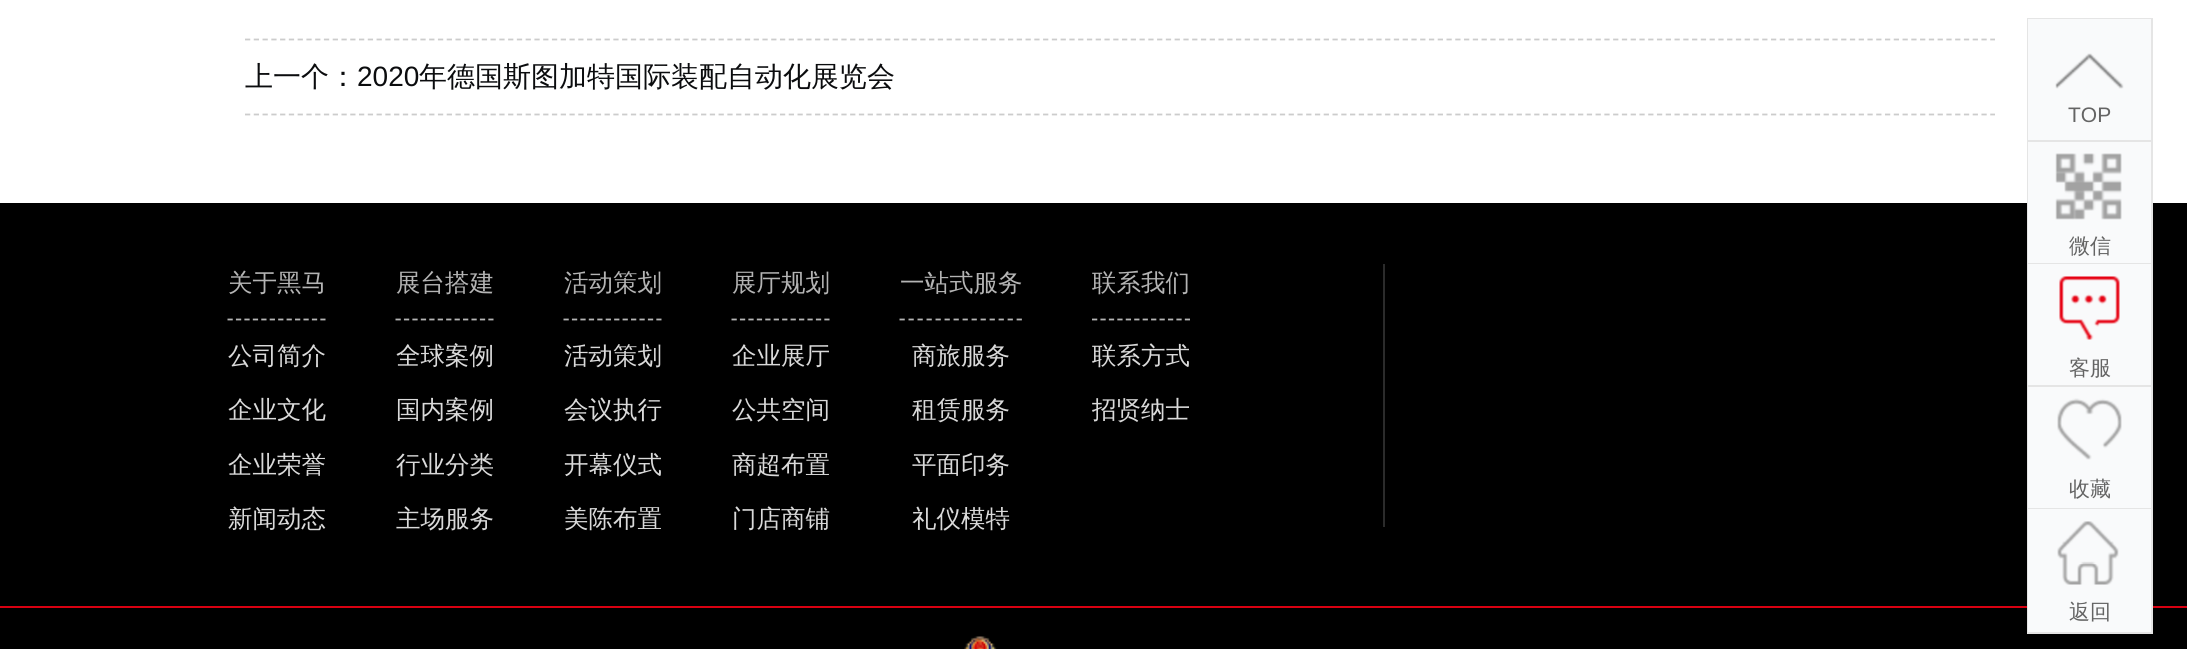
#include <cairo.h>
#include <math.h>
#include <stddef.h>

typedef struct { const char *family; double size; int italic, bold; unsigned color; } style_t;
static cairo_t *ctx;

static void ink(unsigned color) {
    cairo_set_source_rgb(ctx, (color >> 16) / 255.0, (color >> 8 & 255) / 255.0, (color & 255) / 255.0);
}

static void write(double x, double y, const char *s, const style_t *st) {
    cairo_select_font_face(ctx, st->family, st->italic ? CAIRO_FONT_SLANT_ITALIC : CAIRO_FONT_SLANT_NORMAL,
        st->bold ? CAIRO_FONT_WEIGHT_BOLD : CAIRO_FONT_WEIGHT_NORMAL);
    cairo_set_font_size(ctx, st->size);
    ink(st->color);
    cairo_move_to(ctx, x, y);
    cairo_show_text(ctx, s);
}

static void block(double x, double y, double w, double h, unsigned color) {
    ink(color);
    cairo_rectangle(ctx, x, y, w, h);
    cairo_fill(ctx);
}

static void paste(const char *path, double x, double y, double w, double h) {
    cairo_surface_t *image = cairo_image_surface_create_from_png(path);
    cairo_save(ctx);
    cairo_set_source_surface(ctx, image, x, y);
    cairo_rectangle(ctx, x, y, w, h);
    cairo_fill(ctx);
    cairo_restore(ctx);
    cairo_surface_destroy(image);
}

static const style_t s1 = {"WenQuanYi Zen Hei Medium", 28, 0, 0, 0x0b0c0e};
static const style_t s2 = {"Liberation Sans", 28, 0, 0, 0x0b0c0e};
static const style_t s3 = {"WenQuanYi Zen Hei Medium", 24.5, 0, 0, 0xb4b4b4};
static const style_t s4 = {"WenQuanYi Zen Hei Medium", 24.5, 0, 0, 0xdadada};
static const style_t s5 = {"Liberation Sans", 21, 0, 0, 0x646464};
static const style_t s6 = {"WenQuanYi Zen Hei Medium", 21, 0, 0, 0x646464};

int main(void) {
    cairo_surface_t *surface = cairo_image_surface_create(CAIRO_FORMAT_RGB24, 2187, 649);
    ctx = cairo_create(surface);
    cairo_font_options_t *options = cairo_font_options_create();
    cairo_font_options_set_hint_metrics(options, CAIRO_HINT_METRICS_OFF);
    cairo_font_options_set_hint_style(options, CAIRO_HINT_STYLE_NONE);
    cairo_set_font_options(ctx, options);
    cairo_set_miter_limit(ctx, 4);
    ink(0xffffff);
    cairo_paint(ctx);
    cairo_new_path(ctx);
    cairo_move_to(ctx, 245, 39.5);
    cairo_line_to(ctx, 1995, 39.5);
    ink(0xcccccc);
    cairo_set_line_width(ctx, 1.8);
    cairo_set_dash(ctx, (double[]){5.25, 3.52}, 2, 0);
    cairo_stroke(ctx);
    cairo_new_path(ctx);
    cairo_move_to(ctx, 245, 114.5);
    cairo_line_to(ctx, 1995, 114.5);
    cairo_stroke(ctx);
    write(245, 86, "上一个：", &s1);
    write(357, 86, "2020", &s2);
    write(419, 86, "年德国斯图加特国际装配自动化展览会", &s1);
    block(0, 203, 2187, 446, 0x000000);
    cairo_new_path(ctx);
    cairo_move_to(ctx, 227.5, 319.5);
    cairo_line_to(ctx, 325.5, 319.5);
    ink(0xb4b4b4);
    cairo_set_dash(ctx, (double[]){5.25, 3.19}, 2, 0);
    cairo_stroke(ctx);
    write(228, 291, "关于黑马", &s3);
    write(228, 364, "公司简介", &s4);
    write(228, 418, "企业文化", &s4);
    write(228, 473, "企业荣誉", &s4);
    write(228, 527, "新闻动态", &s4);
    cairo_new_path(ctx);
    cairo_move_to(ctx, 395.5, 319.5);
    cairo_line_to(ctx, 493.5, 319.5);
    ink(0xb4b4b4);
    cairo_stroke(ctx);
    write(396, 291, "展台搭建", &s3);
    write(396, 364, "全球案例", &s4);
    write(396, 418, "国内案例", &s4);
    write(396, 473, "行业分类", &s4);
    write(396, 527, "主场服务", &s4);
    cairo_new_path(ctx);
    cairo_move_to(ctx, 563.5, 319.5);
    cairo_line_to(ctx, 661.5, 319.5);
    ink(0xb4b4b4);
    cairo_stroke(ctx);
    write(564, 291, "活动策划", &s3);
    write(564, 364, "活动策划", &s4);
    write(564, 418, "会议执行", &s4);
    write(564, 473, "开幕仪式", &s4);
    write(564, 527, "美陈布置", &s4);
    cairo_new_path(ctx);
    cairo_move_to(ctx, 731.5, 319.5);
    cairo_line_to(ctx, 829.5, 319.5);
    ink(0xb4b4b4);
    cairo_stroke(ctx);
    write(732, 291, "展厅规划", &s3);
    write(732, 364, "企业展厅", &s4);
    write(732, 418, "公共空间", &s4);
    write(732, 473, "商超布置", &s4);
    write(732, 527, "门店商铺", &s4);
    cairo_new_path(ctx);
    cairo_move_to(ctx, 899.5, 319.5);
    cairo_line_to(ctx, 1022, 319.5);
    ink(0xb4b4b4);
    cairo_set_dash(ctx, (double[]){5.25, 3.76}, 2, 0);
    cairo_stroke(ctx);
    write(900, 291, "一站式服务", &s3);
    write(912, 364, "商旅服务", &s4);
    write(912, 418, "租赁服务", &s4);
    write(912, 473, "平面印务", &s4);
    write(912, 527, "礼仪模特", &s4);
    cairo_new_path(ctx);
    cairo_move_to(ctx, 1092, 319.5);
    cairo_line_to(ctx, 1190, 319.5);
    ink(0xb4b4b4);
    cairo_set_dash(ctx, (double[]){5.25, 3.19}, 2, 0);
    cairo_stroke(ctx);
    write(1092, 291, "联系我们", &s3);
    write(1092, 364, "联系方式", &s4);
    write(1092, 418, "招贤纳士", &s4);
    block(1383, 264, 2, 263, 0x2b2b2b);
    paste("pic1.png", 964, 636, 33, 13);
    block(0, 606, 2187, 2, 0xd80011);
    cairo_rectangle(ctx, 2028, 19, 124, 614);
    ink(0xe5e5e5);
    cairo_set_line_width(ctx, 2);
    cairo_set_dash(ctx, NULL, 0, 0);
    cairo_stroke(ctx);
    block(2028, 19, 123, 121, 0xf9fafb);
    block(2028, 140, 123, 2, 0xe5e5e5);
    paste("pic2.png", 2055, 53, 69, 36);
    write(2068, 122, "TOP", &s5);
    block(2028, 142, 123, 121, 0xf9fafb);
    block(2028, 263, 123, 1, 0xe5e5e5);
    paste("pic3.png", 2055, 153, 67, 67);
    write(2069, 253, "微信", &s6);
    block(2028, 264, 123, 121, 0xf9fafb);
    block(2028, 385, 123, 2, 0xe5e5e5);
    paste("pic4.png", 2059, 276, 61, 64);
    write(2069, 375, "客服", &s6);
    block(2028, 387, 123, 121, 0xf9fafb);
    block(2028, 508, 123, 1, 0xe5e5e5);
    paste("pic5.png", 2057, 398, 65, 62);
    write(2069, 496, "收藏", &s6);
    block(2028, 509, 123, 123, 0xf9fafb);
    paste("pic6.png", 2057, 521, 62, 64);
    write(2069, 619, "返回", &s6);
    cairo_surface_write_to_png(surface, "screenshot.png");
    cairo_font_options_destroy(options);
    cairo_destroy(ctx);
    cairo_surface_destroy(surface);
    return 0;
}
